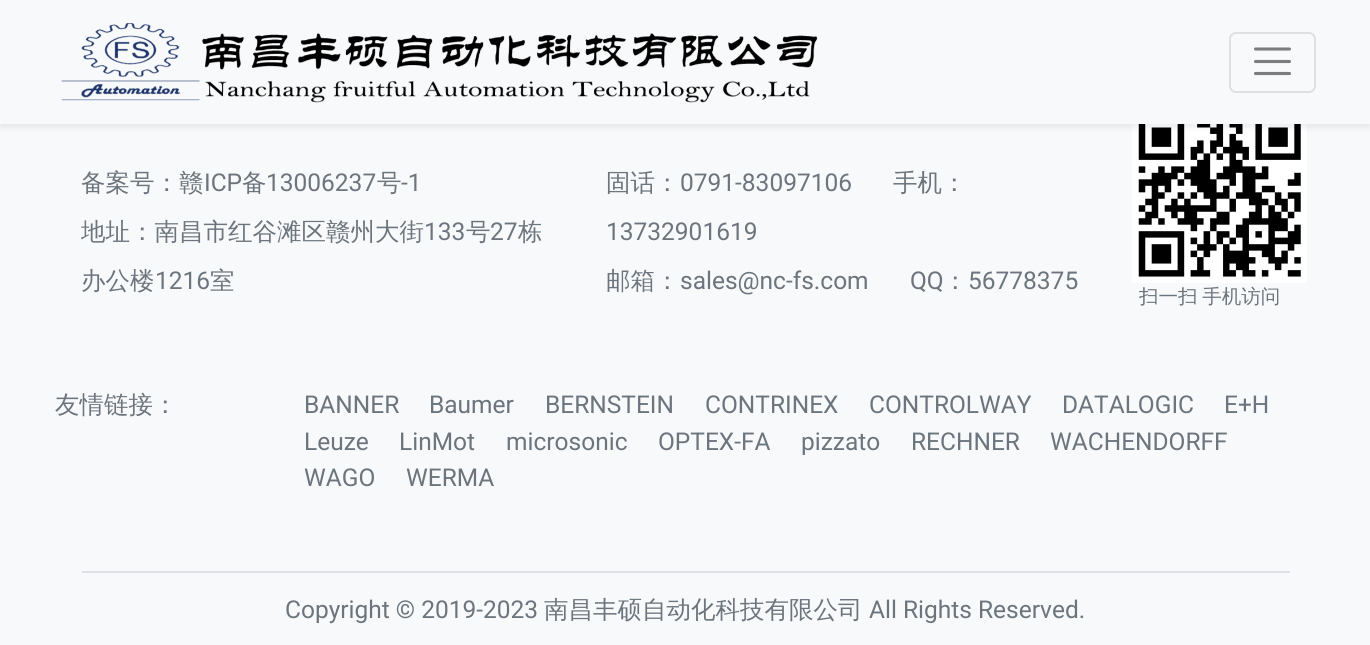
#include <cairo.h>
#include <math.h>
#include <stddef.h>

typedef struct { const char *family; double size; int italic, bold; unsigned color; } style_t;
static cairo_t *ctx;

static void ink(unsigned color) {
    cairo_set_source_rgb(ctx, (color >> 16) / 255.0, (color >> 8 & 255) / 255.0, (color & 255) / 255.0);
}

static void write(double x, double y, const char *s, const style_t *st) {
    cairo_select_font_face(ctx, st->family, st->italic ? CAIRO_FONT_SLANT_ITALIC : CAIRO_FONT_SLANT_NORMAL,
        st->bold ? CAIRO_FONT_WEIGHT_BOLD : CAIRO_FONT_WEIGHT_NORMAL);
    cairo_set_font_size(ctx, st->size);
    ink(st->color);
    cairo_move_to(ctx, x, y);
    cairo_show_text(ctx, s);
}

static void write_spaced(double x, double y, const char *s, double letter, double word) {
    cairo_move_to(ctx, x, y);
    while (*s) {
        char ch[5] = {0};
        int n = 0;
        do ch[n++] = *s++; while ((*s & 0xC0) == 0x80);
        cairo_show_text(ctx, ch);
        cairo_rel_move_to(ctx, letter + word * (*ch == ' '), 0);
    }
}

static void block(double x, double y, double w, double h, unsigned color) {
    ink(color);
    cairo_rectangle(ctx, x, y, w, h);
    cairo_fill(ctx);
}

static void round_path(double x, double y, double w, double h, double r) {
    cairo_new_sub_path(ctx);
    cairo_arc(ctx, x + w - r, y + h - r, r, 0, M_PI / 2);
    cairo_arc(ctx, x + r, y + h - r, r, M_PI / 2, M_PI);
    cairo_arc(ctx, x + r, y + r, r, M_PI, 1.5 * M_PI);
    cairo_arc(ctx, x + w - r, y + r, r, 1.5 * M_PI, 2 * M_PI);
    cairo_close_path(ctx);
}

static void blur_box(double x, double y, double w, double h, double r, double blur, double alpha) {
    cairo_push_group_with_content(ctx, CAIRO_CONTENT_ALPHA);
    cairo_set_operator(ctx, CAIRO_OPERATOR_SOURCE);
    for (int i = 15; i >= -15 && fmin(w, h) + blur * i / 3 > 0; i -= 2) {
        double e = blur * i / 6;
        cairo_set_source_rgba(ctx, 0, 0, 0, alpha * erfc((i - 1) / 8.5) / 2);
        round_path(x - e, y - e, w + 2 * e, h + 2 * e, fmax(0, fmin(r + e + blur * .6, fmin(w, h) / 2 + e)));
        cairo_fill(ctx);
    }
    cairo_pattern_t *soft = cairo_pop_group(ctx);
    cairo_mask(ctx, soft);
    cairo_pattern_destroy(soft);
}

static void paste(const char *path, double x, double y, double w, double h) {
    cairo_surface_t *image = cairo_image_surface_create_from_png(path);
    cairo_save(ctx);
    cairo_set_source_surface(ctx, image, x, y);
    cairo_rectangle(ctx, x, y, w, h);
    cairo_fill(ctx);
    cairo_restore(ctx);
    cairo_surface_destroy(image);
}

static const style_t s1 = {"WenQuanYi Zen Hei Medium", 24.5, 0, 0, 0x6c757d};
static const style_t s2 = {"Roboto", 24.5, 0, 0, 0x6c757d};

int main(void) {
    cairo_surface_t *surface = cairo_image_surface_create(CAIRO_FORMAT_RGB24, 1370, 645);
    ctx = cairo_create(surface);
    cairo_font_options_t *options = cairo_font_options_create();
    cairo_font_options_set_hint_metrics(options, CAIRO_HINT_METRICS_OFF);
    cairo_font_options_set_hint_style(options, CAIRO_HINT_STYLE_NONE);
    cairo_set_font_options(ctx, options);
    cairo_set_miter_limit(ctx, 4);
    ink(0xf8f9fa);
    cairo_paint(ctx);
    paste("pic2.png", 1132, 124, 175, 159);
    ink(0x000000);
    blur_box(0, 4, 1370, 124, 0, 3, 0.07);
    block(0, 1, 1370, 123, 0xf8f9fa);
    paste("pic1.png", 61, 23, 757, 80);
    round_path(1230, 33, 85, 59, 6);
    ink(0xdfe0e1);
    cairo_stroke(ctx);
    cairo_new_path(ctx);
    cairo_move_to(ctx, 1255.5, 49);
    cairo_line_to(ctx, 1289.5, 49);
    cairo_move_to(ctx, 1255.5, 61.5);
    cairo_line_to(ctx, 1289.5, 61.5);
    cairo_move_to(ctx, 1255.5, 73.5);
    cairo_line_to(ctx, 1289.5, 73.5);
    ink(0x7c7d7d);
    cairo_set_line_width(ctx, 3.1);
    cairo_set_line_cap(ctx, CAIRO_LINE_CAP_ROUND);
    cairo_stroke(ctx);
    write(81, 191, "备案号：赣", &s1);
    write(204, 191, "ICP", &s2);
    write(242, 191, "备", &s1);
    write(266, 191, "13006237", &s2);
    write(377, 191, "号", &s1);
    write(401, 191, "-1", &s2);
    write(81, 240, "地址：南昌市红谷滩区赣州大街", &s1);
    write(424, 240, "133", &s2);
    write(466, 240, "号", &s1);
    write(490, 240, "27", &s2);
    write(518, 240, "栋", &s1);
    write(81, 289, "办公楼", &s1);
    write(155, 289, "1216", &s2);
    write(210, 289, "室", &s1);
    write(606, 191, "固话：", &s1);
    write(680, 191, "0791-83097106", &s2);
    write(893, 191, "手机：", &s1);
    write(606, 240, "13732901619", &s2);
    write(606, 289, "邮箱：", &s1);
    write(680, 289, "sales@nc-fs.com", &s2);
    write(910, 289, "QQ", &s2);
    write(943, 289, "：", &s1);
    write(968, 289, "56778375", &s2);
    cairo_select_font_face(ctx, "WenQuanYi Zen Hei Medium", CAIRO_FONT_SLANT_NORMAL, CAIRO_FONT_WEIGHT_NORMAL);
    cairo_set_font_size(ctx, 19.5);
    write_spaced(1139, 303, "扫一扫 手机访问", 0, -1);
    write(55, 413, "友情链接：", &s1);
    write(304, 413, "BANNER", &s2);
    write(429, 413, "Baumer", &s2);
    write(545, 413, "BERNSTEIN", &s2);
    write(705, 413, "CONTRINEX", &s2);
    write(869, 413, "CONTROLWAY", &s2);
    write(1062, 413, "DATALOGIC", &s2);
    write(1224, 413, "E+H", &s2);
    write(304, 450, "Leuze", &s2);
    write(399, 450, "LinMot", &s2);
    write(506, 450, "microsonic", &s2);
    write(658, 450, "OPTEX-FA", &s2);
    write(801, 450, "pizzato", &s2);
    write(911, 450, "RECHNER", &s2);
    write(1050, 450, "WACHENDORFF", &s2);
    write(304, 486, "WAGO", &s2);
    write(406, 486, "WERMA", &s2);
    block(82, 571, 1208, 2, 0xdee2e6);
    write(285, 618, "Copyright © 2019-2023", &s2);
    write(544, 618, "南昌丰硕自动化科技有限公司", &s1);
    write(869, 618, "All Rights Reserved.", &s2);
    cairo_surface_write_to_png(surface, "screenshot.png");
    cairo_font_options_destroy(options);
    cairo_destroy(ctx);
    cairo_surface_destroy(surface);
    return 0;
}
